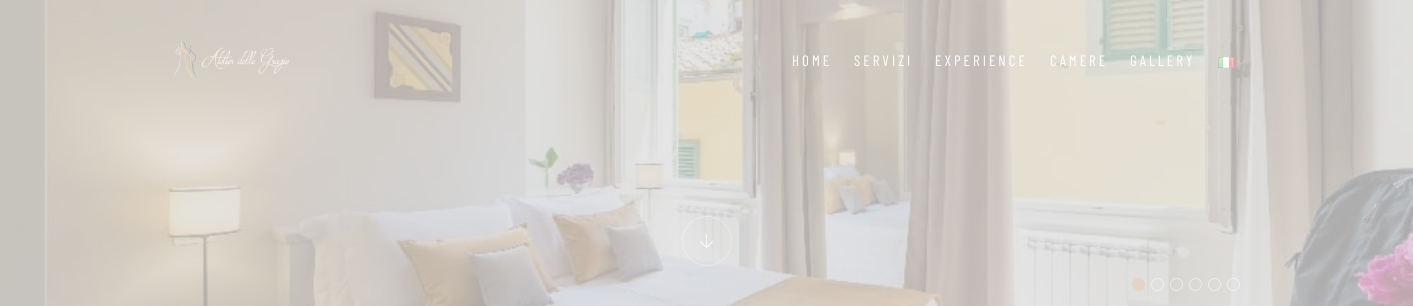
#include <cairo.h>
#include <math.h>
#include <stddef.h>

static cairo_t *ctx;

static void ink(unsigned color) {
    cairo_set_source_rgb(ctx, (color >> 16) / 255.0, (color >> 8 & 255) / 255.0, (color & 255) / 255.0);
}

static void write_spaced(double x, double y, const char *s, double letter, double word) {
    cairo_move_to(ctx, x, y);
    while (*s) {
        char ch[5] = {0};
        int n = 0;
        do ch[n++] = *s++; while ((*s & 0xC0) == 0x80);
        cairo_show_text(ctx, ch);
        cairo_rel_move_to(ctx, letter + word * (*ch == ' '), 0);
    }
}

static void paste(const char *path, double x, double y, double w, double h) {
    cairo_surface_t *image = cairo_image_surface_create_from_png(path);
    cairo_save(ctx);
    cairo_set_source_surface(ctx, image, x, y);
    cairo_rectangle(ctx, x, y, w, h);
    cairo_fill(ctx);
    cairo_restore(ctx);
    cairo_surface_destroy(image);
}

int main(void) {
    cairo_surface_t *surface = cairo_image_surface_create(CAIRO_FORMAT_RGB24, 1413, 306);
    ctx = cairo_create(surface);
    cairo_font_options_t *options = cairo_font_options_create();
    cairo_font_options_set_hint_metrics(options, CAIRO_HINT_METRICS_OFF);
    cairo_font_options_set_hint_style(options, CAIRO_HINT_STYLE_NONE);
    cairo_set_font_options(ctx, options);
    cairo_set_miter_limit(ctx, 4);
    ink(0xffffff);
    cairo_paint(ctx);
    paste("pic1.png", 0, 0, 1413, 306);
    ink(0xe2d5c5);
    cairo_arc(ctx, 1138.5, 284.5, 6, 0, 2 * M_PI);
    cairo_fill_preserve(ctx);
    cairo_set_line_width(ctx, 1);
    cairo_stroke(ctx);
    cairo_arc(ctx, 1157.5, 284.5, 6, 0, 2 * M_PI);
    cairo_set_source_rgba(ctx, 1, 1, 1, 0.5);
    cairo_stroke(ctx);
    cairo_arc(ctx, 1176.5, 284.5, 6, 0, 2 * M_PI);
    cairo_stroke(ctx);
    cairo_arc(ctx, 1195.5, 284.5, 6, 0, 2 * M_PI);
    cairo_stroke(ctx);
    cairo_arc(ctx, 1214.5, 284.5, 6, 0, 2 * M_PI);
    cairo_stroke(ctx);
    cairo_arc(ctx, 1233.5, 284.5, 6, 0, 2 * M_PI);
    cairo_stroke(ctx);
    cairo_arc(ctx, 707, 241, 24.5, 0, 2 * M_PI);
    cairo_set_source_rgba(ctx, 1, 1, 1, 0.3);
    cairo_stroke(ctx);
    paste("pic2.png", 700, 234, 13, 15);
    paste("pic3.png", 174, 40, 115, 40);
    cairo_select_font_face(ctx, "Barlow Condensed", CAIRO_FONT_SLANT_NORMAL, CAIRO_FONT_WEIGHT_NORMAL);
    cairo_set_font_size(ctx, 15);
    ink(0xffffff);
    write_spaced(792, 66, "HOME", 3, 0);
    write_spaced(854, 66, "SERVIZI", 3, 0);
    write_spaced(935, 66, "EXPERIENCE", 3, 0);
    write_spaced(1050, 66, "CAMERE", 3, 0);
    write_spaced(1130, 66, "GALLERY", 3, 0);
    paste("pic4.png", 1218, 57, 16, 11);
    paste("pic5.png", 1237, 60, 8, 5);
    cairo_surface_write_to_png(surface, "screenshot.png");
    cairo_font_options_destroy(options);
    cairo_destroy(ctx);
    cairo_surface_destroy(surface);
    return 0;
}
